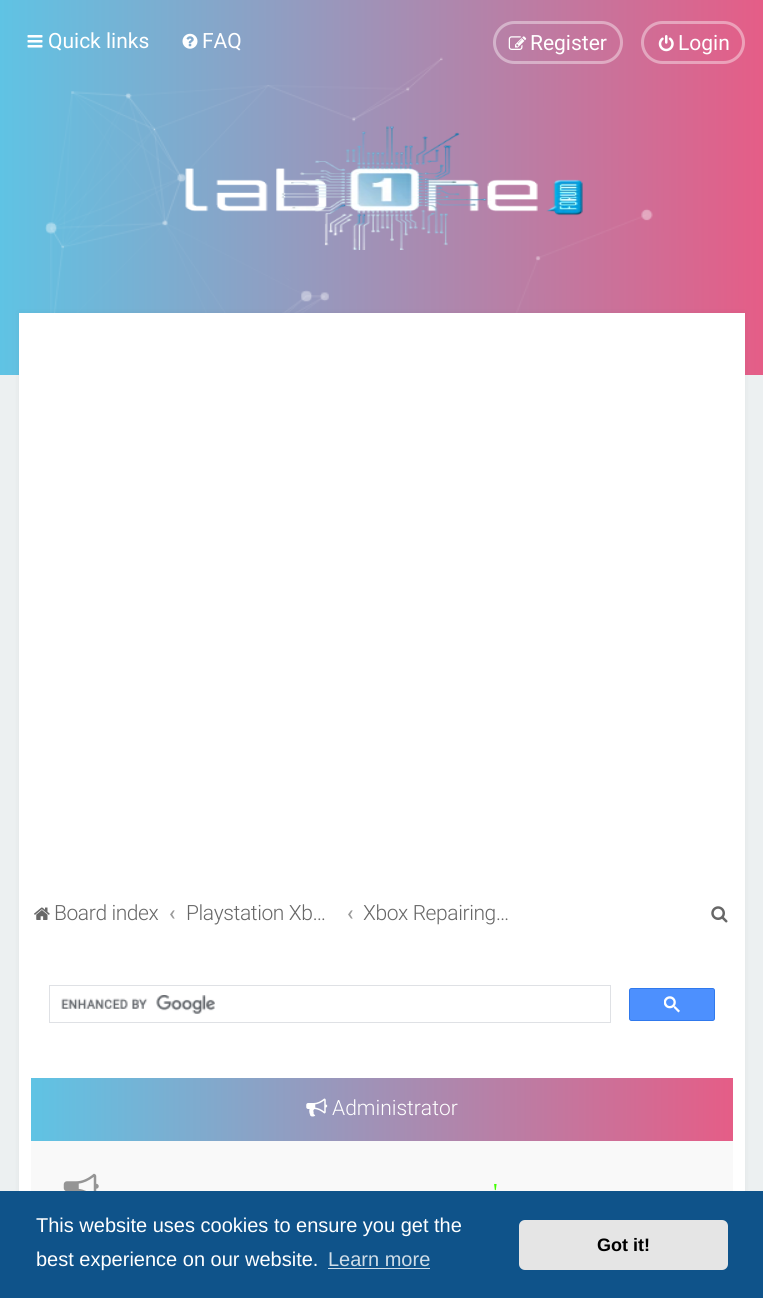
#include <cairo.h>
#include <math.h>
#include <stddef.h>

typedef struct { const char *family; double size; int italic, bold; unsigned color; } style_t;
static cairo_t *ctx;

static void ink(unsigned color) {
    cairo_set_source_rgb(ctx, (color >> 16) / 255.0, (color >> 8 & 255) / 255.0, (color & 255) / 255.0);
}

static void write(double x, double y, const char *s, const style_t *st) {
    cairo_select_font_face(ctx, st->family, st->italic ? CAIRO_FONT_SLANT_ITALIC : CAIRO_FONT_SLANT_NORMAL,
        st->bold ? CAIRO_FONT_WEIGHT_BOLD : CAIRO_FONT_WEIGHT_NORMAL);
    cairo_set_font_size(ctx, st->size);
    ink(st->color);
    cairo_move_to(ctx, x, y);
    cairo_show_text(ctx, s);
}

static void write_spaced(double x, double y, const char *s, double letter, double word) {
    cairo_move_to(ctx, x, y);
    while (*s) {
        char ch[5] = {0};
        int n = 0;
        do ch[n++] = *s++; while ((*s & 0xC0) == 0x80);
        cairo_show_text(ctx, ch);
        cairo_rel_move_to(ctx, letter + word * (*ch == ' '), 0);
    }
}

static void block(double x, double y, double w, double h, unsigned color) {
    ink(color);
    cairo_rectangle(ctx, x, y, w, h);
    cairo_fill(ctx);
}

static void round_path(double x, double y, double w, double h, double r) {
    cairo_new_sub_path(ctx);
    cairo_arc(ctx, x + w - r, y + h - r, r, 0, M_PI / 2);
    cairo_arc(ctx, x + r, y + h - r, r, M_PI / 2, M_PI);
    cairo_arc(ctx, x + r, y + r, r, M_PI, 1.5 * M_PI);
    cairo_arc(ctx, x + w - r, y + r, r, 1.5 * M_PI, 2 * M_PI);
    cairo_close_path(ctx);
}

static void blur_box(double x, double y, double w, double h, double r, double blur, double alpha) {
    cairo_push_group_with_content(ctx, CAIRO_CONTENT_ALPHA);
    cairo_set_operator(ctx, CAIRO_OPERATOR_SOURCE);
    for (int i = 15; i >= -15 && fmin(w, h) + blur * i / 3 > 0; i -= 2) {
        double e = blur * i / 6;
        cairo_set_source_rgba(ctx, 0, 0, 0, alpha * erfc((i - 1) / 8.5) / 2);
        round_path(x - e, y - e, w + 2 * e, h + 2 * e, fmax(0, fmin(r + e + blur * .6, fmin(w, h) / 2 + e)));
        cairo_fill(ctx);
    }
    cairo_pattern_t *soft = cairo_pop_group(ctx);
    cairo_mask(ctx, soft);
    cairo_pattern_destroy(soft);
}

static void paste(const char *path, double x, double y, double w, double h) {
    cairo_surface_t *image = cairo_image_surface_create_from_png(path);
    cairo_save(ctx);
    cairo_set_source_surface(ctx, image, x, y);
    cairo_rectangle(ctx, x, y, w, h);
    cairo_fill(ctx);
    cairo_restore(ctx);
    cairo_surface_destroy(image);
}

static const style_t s1 = {"Roboto", 21, 0, 0, 0xffffff};
static const style_t s2 = {"Roboto Medium", 21, 0, 0, 0x999999};
static const style_t s3 = {"Roboto Light", 21, 0, 0, 0xffffff};
static const style_t s4 = {"Liberation Serif", 26, 0, 0, 0x40ff00};
static const style_t s5 = {"Liberation Sans", 20, 0, 0, 0xffffff};
static const style_t s6 = {"Liberation Sans", 20, 0, 0, 0xcfdde8};
static const style_t s7 = {"Liberation Sans", 18, 0, 1, 0x000000};

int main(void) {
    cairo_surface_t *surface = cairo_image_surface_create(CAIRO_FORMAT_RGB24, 763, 1298);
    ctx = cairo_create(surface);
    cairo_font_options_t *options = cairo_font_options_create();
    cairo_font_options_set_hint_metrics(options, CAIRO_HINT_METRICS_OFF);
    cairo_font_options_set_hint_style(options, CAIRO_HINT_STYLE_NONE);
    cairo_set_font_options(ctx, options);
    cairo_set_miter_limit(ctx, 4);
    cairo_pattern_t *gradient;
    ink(0xecf0f1);
    cairo_paint(ctx);
    gradient = cairo_pattern_create_linear(0, 188, 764, 187);
    cairo_pattern_add_color_stop_rgba(gradient, 0, 0.373, 0.765, 0.894, 1);
    cairo_pattern_add_color_stop_rgba(gradient, 1, 0.898, 0.365, 0.529, 1);
    cairo_set_source(ctx, gradient);
    cairo_pattern_destroy(gradient);
    cairo_rectangle(ctx, 0, 0, 763, 375);
    cairo_fill(ctx);
    paste("pic1.png", 45, 57, 608, 256);
    paste("pic2.png", 185, 126, 398, 124);
    paste("pic3.png", 27, 35, 16, 13);
    write(48, 48, "Quick links", &s1);
    paste("pic4.png", 182, 33, 16, 16);
    write(202, 48, "FAQ", &s1);
    round_path(494.5, 22.5, 127, 40, 20);
    cairo_set_source_rgba(ctx, 1, 1, 1, 0.4);
    cairo_set_line_width(ctx, 3);
    cairo_stroke(ctx);
    paste("pic5.png", 508, 36, 19, 14);
    write(530, 50, "Register", &s1);
    round_path(642.5, 22.5, 101, 40, 20);
    cairo_set_source_rgba(ctx, 1, 1, 1, 0.4);
    cairo_stroke(ctx);
    paste("pic6.png", 658, 35, 16, 17);
    write(678, 50, "Login", &s1);
    ink(0x000000);
    blur_box(19, 313, 726, 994, 0, 3, 0.05);
    block(19, 313, 726, 878, 0xffffff);
    paste("pic7.png", 34, 907, 16, 13);
    cairo_select_font_face(ctx, "Roboto Light", CAIRO_FONT_SLANT_NORMAL, CAIRO_FONT_WEIGHT_NORMAL);
    ink(0x676767);
    write_spaced(54, 920, "Board index", -0.4, 0);
    write(169, 920, "‹", &s2);
    cairo_select_font_face(ctx, "Roboto Light", CAIRO_FONT_SLANT_NORMAL, CAIRO_FONT_WEIGHT_NORMAL);
    ink(0x676767);
    write_spaced(186, 920, "Playstation Xb…", -0.4, 0);
    write(347, 920, "‹", &s2);
    cairo_select_font_face(ctx, "Roboto Light", CAIRO_FONT_SLANT_NORMAL, CAIRO_FONT_WEIGHT_NORMAL);
    ink(0x676767);
    write_spaced(363, 920, "Xbox Repairing…", -0.4, 0);
    paste("pic8.png", 711, 906, 17, 17);
    cairo_rectangle(ctx, 49.5, 985.5, 561, 37);
    ink(0xdfe1e5);
    cairo_set_line_width(ctx, 1);
    cairo_stroke(ctx);
    paste("pic9.png", 61, 995, 154, 19);
    ink(0x4d90fe);
    round_path(629.5, 988.5, 85, 32, 2);
    cairo_fill_preserve(ctx);
    ink(0x3079ed);
    cairo_stroke(ctx);
    paste("pic10.png", 664, 996, 16, 17);
    block(31, 1141, 702, 50, 0xf9f9f9);
    gradient = cairo_pattern_create_linear(31, 1109, 733, 1109);
    cairo_pattern_add_color_stop_rgba(gradient, 0, 0.373, 0.765, 0.894, 1);
    cairo_pattern_add_color_stop_rgba(gradient, 1, 0.898, 0.365, 0.529, 1);
    cairo_set_source(ctx, gradient);
    cairo_pattern_destroy(gradient);
    cairo_rectangle(ctx, 31, 1078, 702, 63);
    cairo_fill(ctx);
    paste("pic11.png", 306, 1098, 22, 19);
    write(332, 1115, "Administrator", &s3);
    paste("pic12.png", 63, 1173, 36, 18);
    write(493, 1201, "'", &s4);
    block(0, 1191, 763, 107, 0x0f538a);
    write(36, 1232, "This website uses cookies to ensure you get the", &s5);
    write(36, 1266, "best experience on our website.", &s5);
    write(328, 1266, "Learn more", &s6);
    block(328, 1268, 102, 1, 0xcfdde8);
    ink(0xe5e5e5);
    round_path(519, 1220, 209, 50, 6);
    cairo_fill(ctx);
    write(597, 1251, "Got it!", &s7);
    cairo_surface_write_to_png(surface, "screenshot.png");
    cairo_font_options_destroy(options);
    cairo_destroy(ctx);
    cairo_surface_destroy(surface);
    return 0;
}
